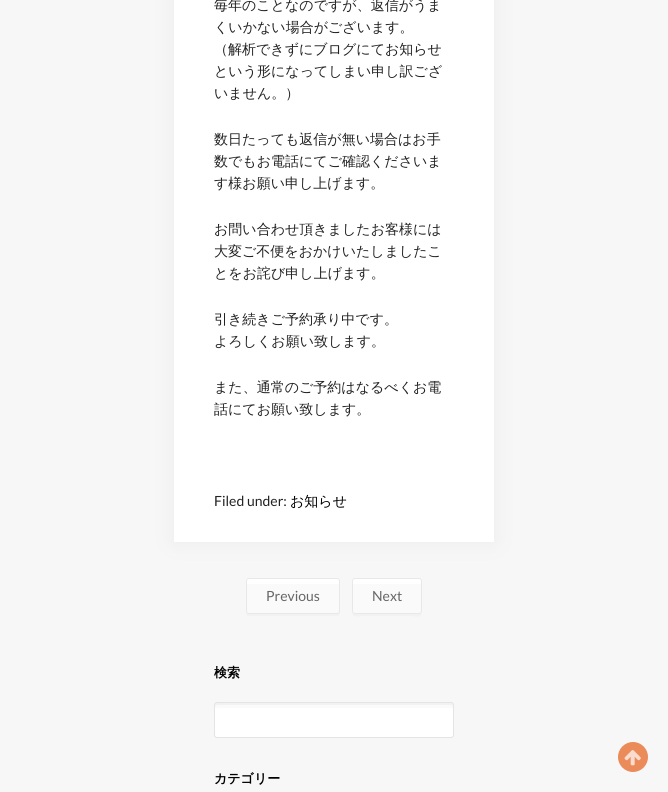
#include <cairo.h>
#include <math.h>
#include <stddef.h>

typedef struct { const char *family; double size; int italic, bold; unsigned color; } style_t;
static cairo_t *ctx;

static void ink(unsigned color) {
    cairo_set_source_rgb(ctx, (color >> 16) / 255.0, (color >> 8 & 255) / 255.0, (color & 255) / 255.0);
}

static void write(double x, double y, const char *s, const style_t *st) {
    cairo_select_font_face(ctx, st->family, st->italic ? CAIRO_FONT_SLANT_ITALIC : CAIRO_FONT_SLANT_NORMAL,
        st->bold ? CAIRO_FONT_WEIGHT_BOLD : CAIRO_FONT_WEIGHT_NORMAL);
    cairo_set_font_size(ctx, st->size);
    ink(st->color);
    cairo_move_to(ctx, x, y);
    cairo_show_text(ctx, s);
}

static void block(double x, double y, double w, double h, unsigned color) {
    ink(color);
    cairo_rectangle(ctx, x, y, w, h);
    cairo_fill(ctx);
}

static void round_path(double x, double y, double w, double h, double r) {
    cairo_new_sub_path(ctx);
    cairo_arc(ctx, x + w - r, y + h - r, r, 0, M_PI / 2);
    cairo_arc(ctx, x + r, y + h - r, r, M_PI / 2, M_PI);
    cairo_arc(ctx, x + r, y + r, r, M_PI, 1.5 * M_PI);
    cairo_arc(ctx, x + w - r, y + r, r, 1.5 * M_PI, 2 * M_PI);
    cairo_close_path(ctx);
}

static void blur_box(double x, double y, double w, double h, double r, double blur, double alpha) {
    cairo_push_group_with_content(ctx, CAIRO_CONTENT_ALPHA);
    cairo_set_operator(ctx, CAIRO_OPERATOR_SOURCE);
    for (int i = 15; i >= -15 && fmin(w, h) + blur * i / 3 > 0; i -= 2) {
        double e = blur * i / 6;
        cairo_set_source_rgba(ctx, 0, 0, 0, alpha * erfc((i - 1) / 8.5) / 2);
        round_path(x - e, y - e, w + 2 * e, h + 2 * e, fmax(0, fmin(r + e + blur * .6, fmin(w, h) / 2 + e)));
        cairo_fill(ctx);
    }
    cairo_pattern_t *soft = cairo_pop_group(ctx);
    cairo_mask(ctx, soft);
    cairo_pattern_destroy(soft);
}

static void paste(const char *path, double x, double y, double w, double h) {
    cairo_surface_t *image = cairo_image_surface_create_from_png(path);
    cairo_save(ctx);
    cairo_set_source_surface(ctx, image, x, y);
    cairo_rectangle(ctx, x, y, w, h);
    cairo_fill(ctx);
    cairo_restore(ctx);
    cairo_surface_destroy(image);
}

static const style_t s1 = {"WenQuanYi Zen Hei Medium", 14, 0, 0, 0x222222};
static const style_t s2 = {"Lato", 14, 0, 0, 0x222222};
static const style_t s3 = {"WenQuanYi Zen Hei Medium", 14, 0, 0, 0x000000};
static const style_t s4 = {"Lato", 14, 0, 0, 0x666666};
static const style_t s5 = {"WenQuanYi Zen Hei", 13, 0, 1, 0x000000};

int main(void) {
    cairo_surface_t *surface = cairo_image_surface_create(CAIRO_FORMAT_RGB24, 668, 792);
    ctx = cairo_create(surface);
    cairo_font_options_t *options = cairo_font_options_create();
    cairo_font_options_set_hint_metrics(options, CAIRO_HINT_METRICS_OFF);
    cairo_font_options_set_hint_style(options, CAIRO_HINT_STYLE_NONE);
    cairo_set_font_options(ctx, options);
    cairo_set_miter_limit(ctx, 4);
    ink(0xf7f7f7);
    cairo_paint(ctx);
    ink(0xebebeb);
    blur_box(174, -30, 320, 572, 0, 10, 1);
    block(174, 0, 320, 542, 0xffffff);
    write(214, 10, "毎年のことなのですが、返信がうま", &s1);
    write(214, 32, "くいかない場合がございます。", &s1);
    write(214, 54, "（解析できずにブログにてお知らせ", &s1);
    write(214, 76, "という形になってしまい申し訳ござ", &s1);
    write(214, 98, "いません。）", &s1);
    write(214, 144, "数日たっても返信が無い場合はお手", &s1);
    write(214, 166, "数でもお電話にてご確認くださいま", &s1);
    write(214, 188, "す様お願い申し上げます。", &s1);
    write(214, 234, "お問い合わせ頂きましたお客様には", &s1);
    write(214, 256, "大変ご不便をおかけいたしましたこ", &s1);
    write(214, 278, "とをお詫び申し上げます。", &s1);
    write(214, 324, "引き続きご予約承り中です。", &s1);
    write(214, 346, "よろしくお願い致します。", &s1);
    write(214, 392, "また、通常のご予約はなるべくお電", &s1);
    write(214, 414, "話にてお願い致します。", &s1);
    write(214, 506, "Filed under:", &s2);
    write(290, 506, "お知らせ", &s3);
    ink(0xf2f2f2);
    cairo_new_path(ctx);
    cairo_move_to(ctx, 246, 611);
    cairo_line_to(ctx, 246, 613);
    cairo_curve_to(ctx, 246, 615, 247, 616, 249, 616);
    cairo_line_to(ctx, 337, 616);
    cairo_curve_to(ctx, 339, 616, 340, 615, 340, 613);
    cairo_line_to(ctx, 340, 611);
    cairo_curve_to(ctx, 340, 613, 339, 614, 337, 614);
    cairo_line_to(ctx, 249, 614);
    cairo_curve_to(ctx, 247, 614, 246, 613, 246, 611);
    cairo_close_path(ctx);
    cairo_fill(ctx);
    ink(0xfafafa);
    round_path(246, 578, 94, 36, 3);
    cairo_fill(ctx);
    block(246, 579, 94, 5, 0xffffff);
    round_path(246.5, 578.5, 93, 35, 2.5);
    ink(0xe8e8e8);
    cairo_set_line_width(ctx, 1);
    cairo_stroke(ctx);
    write(266, 601, "Previous", &s4);
    ink(0xf2f2f2);
    cairo_new_path(ctx);
    cairo_move_to(ctx, 352, 611);
    cairo_curve_to(ctx, 352, 619, 358, 616, 366, 616);
    cairo_line_to(ctx, 408, 616);
    cairo_curve_to(ctx, 416, 616, 422, 619, 422, 611);
    cairo_curve_to(ctx, 422, 613, 421, 614, 419, 614);
    cairo_line_to(ctx, 355, 614);
    cairo_curve_to(ctx, 353, 614, 352, 613, 352, 611);
    cairo_close_path(ctx);
    cairo_fill(ctx);
    ink(0xfafafa);
    round_path(352, 578, 70, 36, 3);
    cairo_fill(ctx);
    block(352, 579, 70, 5, 0xffffff);
    round_path(352.5, 578.5, 69, 35, 2.5);
    ink(0xe8e8e8);
    cairo_stroke(ctx);
    write(372, 601, "Next", &s4);
    write(214, 677, "検索", &s5);
    ink(0xffffff);
    round_path(215, 703, 238, 34, 2);
    cairo_fill(ctx);
    paste("pic1.png", 215, 703, 238, 5);
    ink(0xf2f2f2);
    cairo_new_path(ctx);
    cairo_move_to(ctx, 217, 705);
    cairo_line_to(ctx, 451, 705);
    cairo_curve_to(ctx, 452, 705, 453, 706, 453, 707);
    cairo_curve_to(ctx, 453, 705, 453, 703, 451, 703);
    cairo_line_to(ctx, 217, 703);
    cairo_curve_to(ctx, 215, 703, 215, 705, 215, 707);
    cairo_curve_to(ctx, 215, 706, 216, 705, 217, 705);
    cairo_close_path(ctx);
    cairo_fill(ctx);
    round_path(214.5, 702.5, 239, 35, 2.5);
    ink(0xe4e4e4);
    cairo_stroke(ctx);
    write(214, 783, "カテゴリー", &s5);
    ink(0xec8b5a);
    cairo_new_path(ctx);
    cairo_arc(ctx, 633, 757, 15, 0, 2 * M_PI);
    cairo_fill(ctx);
    paste("pic2.png", 624, 750, 17, 16);
    cairo_surface_write_to_png(surface, "screenshot.png");
    cairo_font_options_destroy(options);
    cairo_destroy(ctx);
    cairo_surface_destroy(surface);
    return 0;
}
